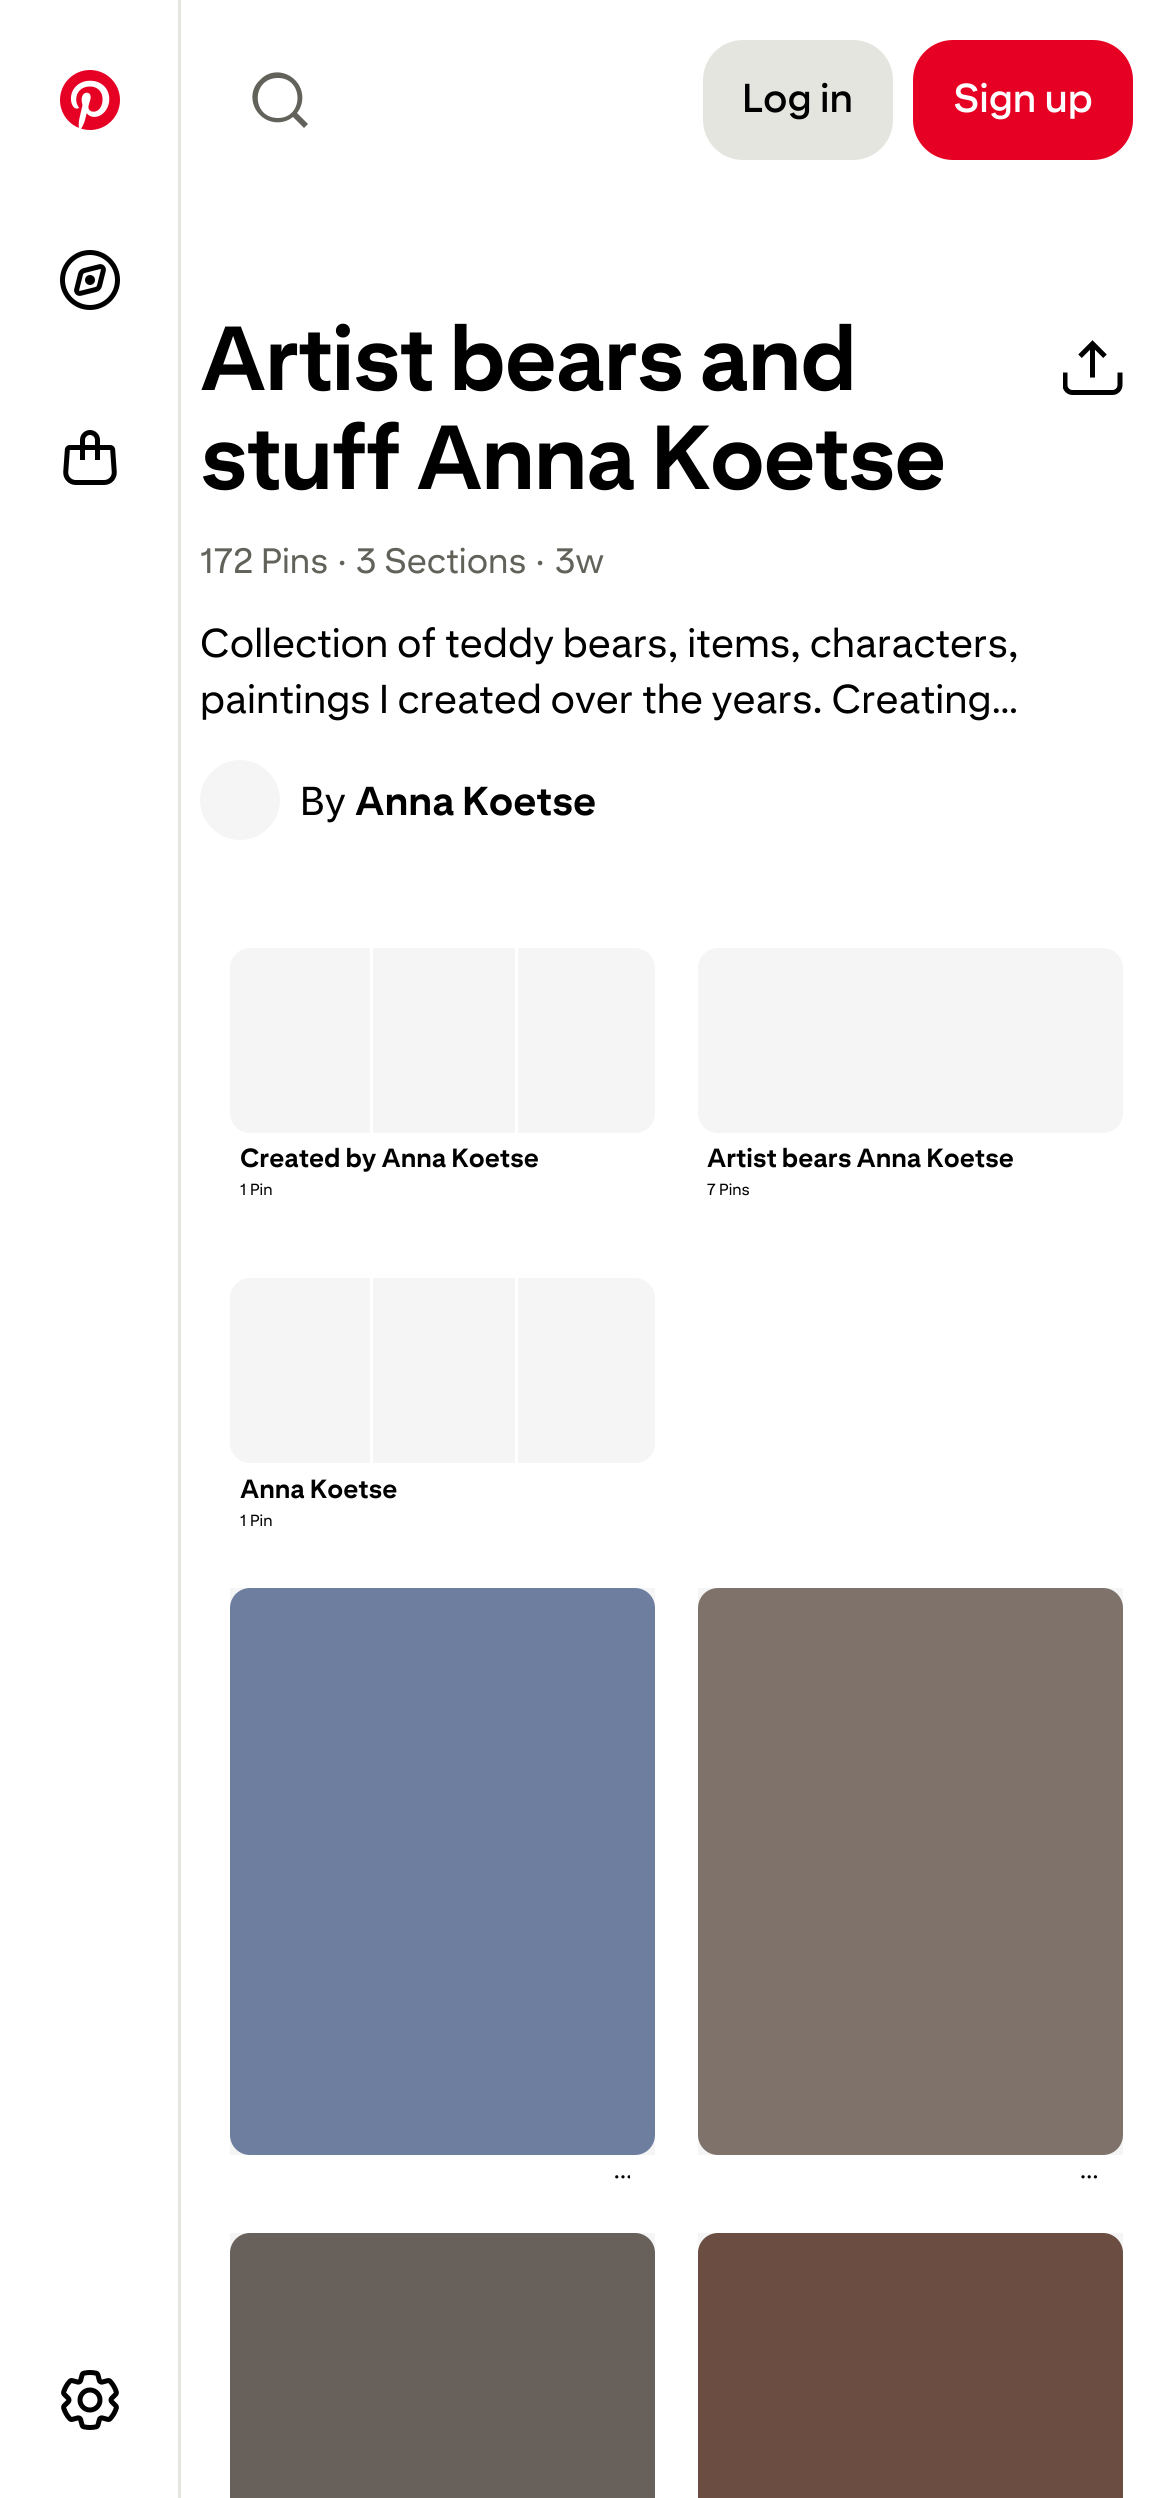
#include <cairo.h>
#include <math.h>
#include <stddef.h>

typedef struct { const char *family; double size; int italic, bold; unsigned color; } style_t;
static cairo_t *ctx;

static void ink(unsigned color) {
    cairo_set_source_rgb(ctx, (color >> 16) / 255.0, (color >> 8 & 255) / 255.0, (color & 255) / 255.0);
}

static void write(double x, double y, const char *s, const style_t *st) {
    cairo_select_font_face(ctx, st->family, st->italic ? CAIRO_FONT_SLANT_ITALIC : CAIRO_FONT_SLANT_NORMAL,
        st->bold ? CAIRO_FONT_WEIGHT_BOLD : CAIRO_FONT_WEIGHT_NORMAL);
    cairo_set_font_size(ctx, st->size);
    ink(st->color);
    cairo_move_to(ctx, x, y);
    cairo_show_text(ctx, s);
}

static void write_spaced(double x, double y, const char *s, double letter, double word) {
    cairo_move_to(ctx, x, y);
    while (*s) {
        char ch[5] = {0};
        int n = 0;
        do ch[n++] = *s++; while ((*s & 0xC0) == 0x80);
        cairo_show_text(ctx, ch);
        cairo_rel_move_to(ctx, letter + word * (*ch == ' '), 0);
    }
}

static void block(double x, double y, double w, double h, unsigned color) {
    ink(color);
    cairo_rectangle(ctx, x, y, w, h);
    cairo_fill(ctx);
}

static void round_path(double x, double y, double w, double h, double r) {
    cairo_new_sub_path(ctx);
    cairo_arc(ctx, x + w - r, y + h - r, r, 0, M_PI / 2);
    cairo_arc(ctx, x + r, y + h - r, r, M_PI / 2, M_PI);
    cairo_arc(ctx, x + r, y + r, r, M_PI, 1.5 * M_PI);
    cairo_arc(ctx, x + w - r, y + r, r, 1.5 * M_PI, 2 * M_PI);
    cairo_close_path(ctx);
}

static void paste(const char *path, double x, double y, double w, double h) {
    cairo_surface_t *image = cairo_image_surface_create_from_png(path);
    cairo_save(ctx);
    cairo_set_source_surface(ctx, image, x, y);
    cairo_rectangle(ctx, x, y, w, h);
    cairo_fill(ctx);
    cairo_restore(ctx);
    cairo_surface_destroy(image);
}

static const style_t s1 = {"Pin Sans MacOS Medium", 40, 0, 0, 0x000000};
static const style_t s2 = {"Pin Sans MacOS Medium", 40, 0, 0, 0xffffff};
static const style_t s3 = {"Pin Sans MacOS", 35, 0, 0, 0x62625b};
static const style_t s4 = {"Pin Sans MacOS", 40, 0, 0, 0x000000};
static const style_t s5 = {"Pin Sans MacOS", 40, 0, 1, 0x000000};
static const style_t s6 = {"Pin Sans MacOS", 26.1, 0, 1, 0x000000};
static const style_t s7 = {"Pin Sans MacOS", 16, 0, 0, 0x000000};

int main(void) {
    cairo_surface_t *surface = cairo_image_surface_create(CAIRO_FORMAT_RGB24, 1171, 2498);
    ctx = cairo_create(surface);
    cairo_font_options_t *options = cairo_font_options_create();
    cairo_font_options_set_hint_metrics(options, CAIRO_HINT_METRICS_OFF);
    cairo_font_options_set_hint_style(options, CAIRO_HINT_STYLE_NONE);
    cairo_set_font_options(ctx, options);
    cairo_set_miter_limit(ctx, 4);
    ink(0xffffff);
    cairo_paint(ctx);
    block(178, 0, 3, 2498, 0xe5e5e0);
    paste("pic1.png", 60, 70, 60, 60);
    paste("pic2.png", 60, 250, 60, 60);
    paste("pic3.png", 63, 430, 54, 55);
    paste("pic4.png", 61, 2370, 58, 60);
    ink(0x62625b);
    cairo_new_path(ctx);
    cairo_move_to(ctx, 293, 117);
    cairo_curve_to(ctx, 283, 125, 268, 124, 259, 114);
    cairo_curve_to(ctx, 250, 104, 250, 89, 260, 80);
    cairo_curve_to(ctx, 269, 70, 284, 70, 294, 79);
    cairo_curve_to(ctx, 304, 88, 305, 103, 297, 113);
    cairo_line_to(ctx, 308, 124);
    cairo_line_to(ctx, 304, 128);
    cairo_close_path(ctx);
    cairo_move_to(ctx, 278, 78);
    cairo_curve_to(ctx, 251, 78, 251, 118, 278, 118);
    cairo_curve_to(ctx, 304, 118, 304, 78, 278, 78);
    cairo_fill(ctx);
    ink(0xe5e5e0);
    round_path(703, 40, 190, 120, 40);
    cairo_fill(ctx);
    write(742, 112, "Log in", &s1);
    ink(0xe60023);
    round_path(913, 40, 220, 120, 40);
    cairo_fill(ctx);
    write(953, 112, "Sign up", &s2);
    cairo_select_font_face(ctx, "Pin Sans MacOS", CAIRO_FONT_SLANT_NORMAL, CAIRO_FONT_WEIGHT_BOLD);
    cairo_set_font_size(ctx, 90);
    ink(0x000000);
    write_spaced(200, 390, "Artist bears and", -1.25, 0);
    write_spaced(200, 489, "stuff Anna Koetse", -1.25, 0);
    write(200, 573, "172 Pins", &s3);
    write(338, 573, "·", &s3);
    write(356, 573, "3 Sections", &s3);
    write(536, 573, "·", &s3);
    write(555, 573, "3w", &s3);
    write(200, 657, "Collection of teddy bears, items, characters,", &s4);
    write(200, 713, "paintings I created over the years. Creating…", &s4);
    ink(0xf5f5f5);
    cairo_new_path(ctx);
    cairo_arc(ctx, 240, 800, 40, 0, 2 * M_PI);
    cairo_fill(ctx);
    write(300, 815, "By", &s4);
    write(355, 815, "Anna Koetse", &s5);
    paste("pic5.png", 1063, 340, 60, 55);
    ink(0xf5f5f5);
    cairo_new_path(ctx);
    cairo_move_to(ctx, 250, 948);
    cairo_line_to(ctx, 370, 948);
    cairo_line_to(ctx, 370, 1133);
    cairo_line_to(ctx, 250, 1133);
    cairo_curve_to(ctx, 239, 1133, 230, 1124, 230, 1113);
    cairo_line_to(ctx, 230, 968);
    cairo_curve_to(ctx, 230, 957, 239, 948, 250, 948);
    cairo_close_path(ctx);
    cairo_fill(ctx);
    block(373, 948, 142, 185, 0xf5f5f5);
    cairo_new_path(ctx);
    cairo_move_to(ctx, 518, 948);
    cairo_line_to(ctx, 635, 948);
    cairo_curve_to(ctx, 646, 948, 655, 957, 655, 968);
    cairo_line_to(ctx, 655, 1113);
    cairo_curve_to(ctx, 655, 1124, 646, 1133, 635, 1133);
    cairo_line_to(ctx, 518, 1133);
    cairo_close_path(ctx);
    cairo_fill(ctx);
    write(240, 1167, "Created by Anna Koetse", &s6);
    write(240, 1195, "1 Pin", &s7);
    ink(0xf5f5f5);
    cairo_new_path(ctx);
    cairo_move_to(ctx, 718, 948);
    cairo_line_to(ctx, 838, 948);
    cairo_line_to(ctx, 838, 1133);
    cairo_line_to(ctx, 718, 1133);
    cairo_curve_to(ctx, 707, 1133, 698, 1124, 698, 1113);
    cairo_line_to(ctx, 698, 968);
    cairo_curve_to(ctx, 698, 957, 707, 948, 718, 948);
    cairo_close_path(ctx);
    cairo_fill(ctx);
    block(838, 948, 145, 185, 0xf5f5f5);
    cairo_new_path(ctx);
    cairo_move_to(ctx, 983, 948);
    cairo_line_to(ctx, 1103, 948);
    cairo_curve_to(ctx, 1114, 948, 1123, 957, 1123, 968);
    cairo_line_to(ctx, 1123, 1113);
    cairo_curve_to(ctx, 1123, 1124, 1114, 1133, 1103, 1133);
    cairo_line_to(ctx, 983, 1133);
    cairo_close_path(ctx);
    cairo_fill(ctx);
    write(707, 1167, "Artist bears Anna Koetse", &s6);
    write(707, 1195, "7 Pins", &s7);
    ink(0xf5f5f5);
    cairo_new_path(ctx);
    cairo_move_to(ctx, 250, 1278);
    cairo_line_to(ctx, 370, 1278);
    cairo_line_to(ctx, 370, 1463);
    cairo_line_to(ctx, 250, 1463);
    cairo_curve_to(ctx, 239, 1463, 230, 1454, 230, 1443);
    cairo_line_to(ctx, 230, 1298);
    cairo_curve_to(ctx, 230, 1287, 239, 1278, 250, 1278);
    cairo_close_path(ctx);
    cairo_fill(ctx);
    block(373, 1278, 142, 185, 0xf5f5f5);
    cairo_new_path(ctx);
    cairo_move_to(ctx, 518, 1278);
    cairo_line_to(ctx, 635, 1278);
    cairo_curve_to(ctx, 646, 1278, 655, 1287, 655, 1298);
    cairo_line_to(ctx, 655, 1443);
    cairo_curve_to(ctx, 655, 1454, 646, 1463, 635, 1463);
    cairo_line_to(ctx, 518, 1463);
    cairo_close_path(ctx);
    cairo_fill(ctx);
    write(240, 1498, "Anna Koetse", &s6);
    write(240, 1526, "1 Pin", &s7);
    ink(0x7283a6);
    round_path(230, 1588, 425, 567, 20);
    cairo_fill(ctx);
    cairo_set_source_rgba(ctx, 0, 0, 0, 0.04);
    cairo_rectangle(ctx, 230, 1588, 425, 567);
    cairo_fill(ctx);
    paste("pic6.png", 615, 2175, 15, 4);
    ink(0x84776f);
    round_path(698, 1588, 425, 567, 20);
    cairo_fill(ctx);
    cairo_set_source_rgba(ctx, 0, 0, 0, 0.04);
    cairo_rectangle(ctx, 698, 1588, 425, 567);
    cairo_fill(ctx);
    paste("pic7.png", 1081, 2175, 16, 4);
    ink(0x6c645f);
    round_path(230, 2233, 425, 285, 20);
    cairo_fill(ctx);
    cairo_set_source_rgba(ctx, 0, 0, 0, 0.04);
    cairo_rectangle(ctx, 230, 2233, 425, 265);
    cairo_fill(ctx);
    ink(0x6f5044);
    round_path(698, 2233, 425, 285, 20);
    cairo_fill(ctx);
    cairo_set_source_rgba(ctx, 0, 0, 0, 0.04);
    cairo_rectangle(ctx, 698, 2233, 425, 265);
    cairo_fill(ctx);
    cairo_surface_write_to_png(surface, "screenshot.png");
    cairo_font_options_destroy(options);
    cairo_destroy(ctx);
    cairo_surface_destroy(surface);
    return 0;
}
